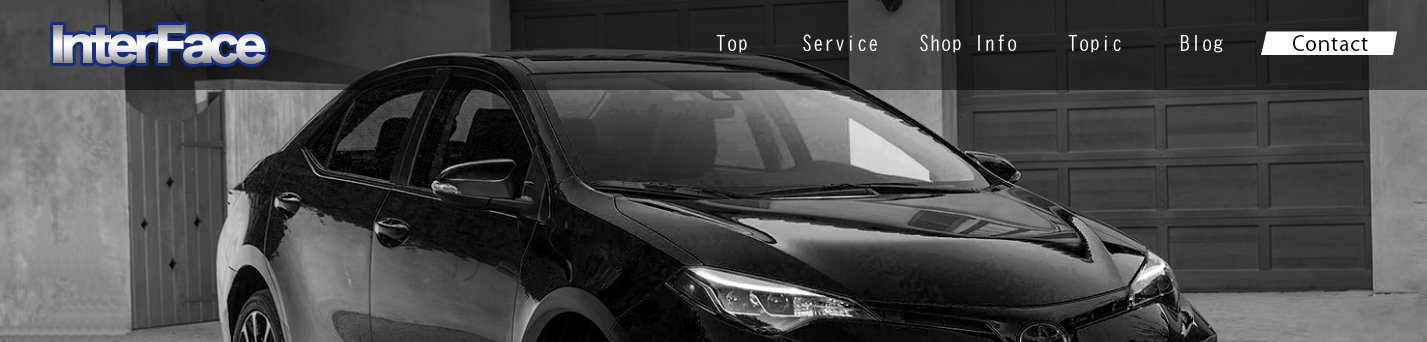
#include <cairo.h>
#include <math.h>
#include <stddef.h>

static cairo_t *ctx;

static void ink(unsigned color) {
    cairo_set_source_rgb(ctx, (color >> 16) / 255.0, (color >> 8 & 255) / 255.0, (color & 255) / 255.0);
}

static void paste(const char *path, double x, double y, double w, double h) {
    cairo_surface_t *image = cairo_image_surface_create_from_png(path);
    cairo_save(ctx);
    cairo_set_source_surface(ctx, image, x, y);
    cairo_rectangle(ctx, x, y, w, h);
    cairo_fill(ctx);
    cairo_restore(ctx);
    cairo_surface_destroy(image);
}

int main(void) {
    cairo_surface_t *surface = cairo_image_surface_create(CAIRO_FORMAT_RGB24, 1427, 342);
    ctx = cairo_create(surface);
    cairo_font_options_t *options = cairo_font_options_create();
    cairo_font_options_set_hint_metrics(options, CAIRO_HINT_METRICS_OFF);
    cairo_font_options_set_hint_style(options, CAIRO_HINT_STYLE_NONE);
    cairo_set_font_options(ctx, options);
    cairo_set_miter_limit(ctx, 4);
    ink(0xffffff);
    cairo_paint(ctx);
    paste("pic1.png", 0, 0, 1427, 342);
    cairo_set_source_rgba(ctx, 0, 0, 0, 0.5);
    cairo_rectangle(ctx, 0, 0, 1427, 90);
    cairo_fill(ctx);
    paste("pic2.png", 50, 22, 219, 45);
    paste("pic3.png", 716, 34, 31, 19);
    paste("pic4.png", 803, 34, 74, 18);
    paste("pic5.png", 920, 34, 97, 19);
    paste("pic6.png", 1068, 34, 53, 19);
    paste("pic7.png", 1180, 34, 43, 19);
    paste("pic8.png", 1261, 31, 136, 24);
    cairo_surface_write_to_png(surface, "screenshot.png");
    cairo_font_options_destroy(options);
    cairo_destroy(ctx);
    cairo_surface_destroy(surface);
    return 0;
}
